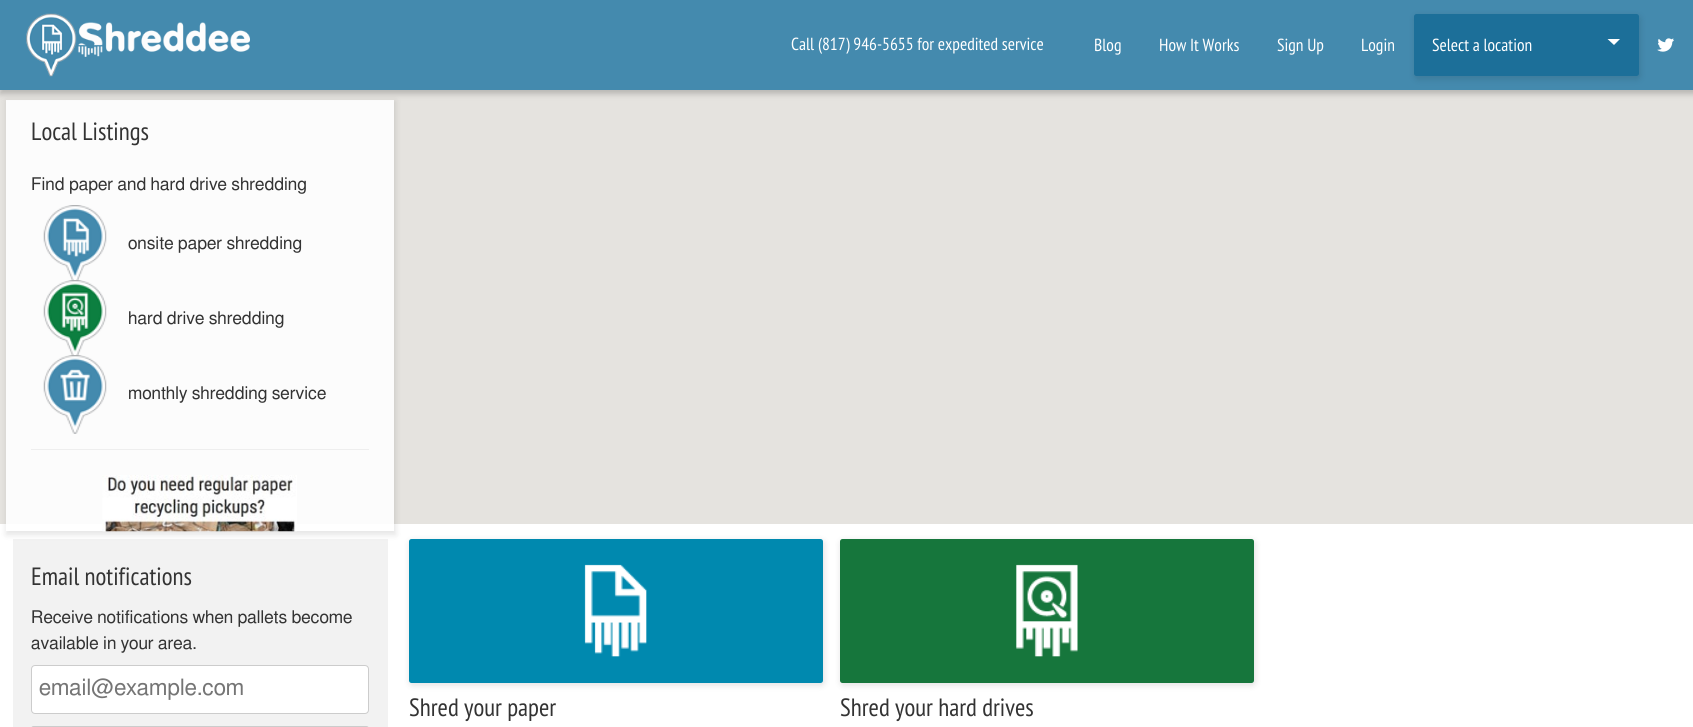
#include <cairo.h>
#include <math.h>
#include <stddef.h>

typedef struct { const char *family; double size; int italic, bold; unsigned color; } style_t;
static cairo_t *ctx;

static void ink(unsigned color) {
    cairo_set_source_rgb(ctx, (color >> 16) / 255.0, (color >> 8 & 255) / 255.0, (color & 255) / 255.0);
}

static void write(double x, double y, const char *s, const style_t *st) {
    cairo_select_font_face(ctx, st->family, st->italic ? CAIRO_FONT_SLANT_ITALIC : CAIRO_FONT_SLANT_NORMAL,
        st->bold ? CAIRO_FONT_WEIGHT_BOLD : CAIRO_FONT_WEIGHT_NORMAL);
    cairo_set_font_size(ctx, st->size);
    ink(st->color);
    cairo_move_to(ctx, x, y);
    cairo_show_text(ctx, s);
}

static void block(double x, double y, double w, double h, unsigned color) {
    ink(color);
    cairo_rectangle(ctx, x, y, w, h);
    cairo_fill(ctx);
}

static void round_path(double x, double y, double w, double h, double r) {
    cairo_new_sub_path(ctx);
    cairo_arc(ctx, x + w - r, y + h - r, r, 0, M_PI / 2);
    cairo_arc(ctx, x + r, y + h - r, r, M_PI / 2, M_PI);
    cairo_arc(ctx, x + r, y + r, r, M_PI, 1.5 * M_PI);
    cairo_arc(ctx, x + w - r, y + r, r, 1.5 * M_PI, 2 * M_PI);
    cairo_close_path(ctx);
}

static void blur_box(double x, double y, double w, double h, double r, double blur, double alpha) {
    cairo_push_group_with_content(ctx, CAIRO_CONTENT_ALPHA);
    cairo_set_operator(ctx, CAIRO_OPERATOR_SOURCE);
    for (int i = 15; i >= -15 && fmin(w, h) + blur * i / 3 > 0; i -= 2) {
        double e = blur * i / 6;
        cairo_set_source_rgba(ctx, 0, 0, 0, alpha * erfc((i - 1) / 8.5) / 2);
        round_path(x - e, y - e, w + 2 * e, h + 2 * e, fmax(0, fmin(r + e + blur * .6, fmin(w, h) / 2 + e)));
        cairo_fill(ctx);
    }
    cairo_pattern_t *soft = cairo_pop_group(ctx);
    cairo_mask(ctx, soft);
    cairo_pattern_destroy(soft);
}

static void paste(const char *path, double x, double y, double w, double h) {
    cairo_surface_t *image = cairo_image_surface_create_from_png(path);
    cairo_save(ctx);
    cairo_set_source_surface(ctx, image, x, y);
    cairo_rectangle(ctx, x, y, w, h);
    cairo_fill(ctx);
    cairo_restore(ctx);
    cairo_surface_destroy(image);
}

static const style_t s1 = {"PT Sans Narrow", 17.5, 0, 0, 0xffffff};
static const style_t s2 = {"PT Sans Narrow", 25, 0, 0, 0x333333};
static const style_t s3 = {"FreeSans", 17.5, 0, 0, 0x333333};
static const style_t s4 = {"FreeSans", 22.5, 0, 0, 0x757575};

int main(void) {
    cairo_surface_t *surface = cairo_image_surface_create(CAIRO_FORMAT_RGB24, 1693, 727);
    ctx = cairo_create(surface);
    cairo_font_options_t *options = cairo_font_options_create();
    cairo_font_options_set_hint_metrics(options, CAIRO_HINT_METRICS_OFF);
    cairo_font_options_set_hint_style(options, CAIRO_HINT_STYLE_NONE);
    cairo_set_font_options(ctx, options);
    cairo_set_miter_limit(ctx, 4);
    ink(0xffffff);
    cairo_paint(ctx);
    block(0, 90, 1693, 434, 0xe5e3df);
    block(13, 539, 375, 188, 0xf2f2f2);
    cairo_save(ctx);
    cairo_set_fill_rule(ctx, CAIRO_FILL_RULE_EVEN_ODD);
    cairo_new_path(ctx);
    cairo_move_to(ctx, 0, 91);
    cairo_line_to(ctx, 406, 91);
    cairo_line_to(ctx, 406, 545);
    cairo_line_to(ctx, 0, 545);
    cairo_close_path(ctx);
    cairo_move_to(ctx, 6, 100);
    cairo_line_to(ctx, 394, 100);
    cairo_line_to(ctx, 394, 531);
    cairo_line_to(ctx, 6, 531);
    cairo_close_path(ctx);
    cairo_clip(ctx);
    ink(0x000000);
    blur_box(6, 101, 390, 434, 0, 3, 0.1);
    cairo_restore(ctx);
    cairo_set_source_rgba(ctx, 1, 1, 1, 0.9);
    cairo_rectangle(ctx, 6, 100, 388, 431);
    cairo_fill(ctx);
    ink(0x000000);
    blur_box(0, 1, 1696, 93, 0, 3, 0.2);
    block(0, 0, 1693, 90, 0x448aae);
    paste("pic1.png", 26, 13, 224, 64);
    write(791, 50, "Call (817) 946-5655 for expedited service", &s1);
    write(1094, 51, "Blog", &s1);
    write(1159, 51, "How It Works", &s1);
    write(1277, 51, "Sign Up", &s1);
    write(1361, 51, "Login", &s1);
    ink(0x000000);
    blur_box(1414, 15, 227, 65, 4, 3, 0.1);
    ink(0x1c6f99);
    round_path(1414, 14, 225, 62, 2.5);
    cairo_fill(ctx);
    write(1432, 51, "Select a location", &s1);
    cairo_new_path(ctx);
    cairo_move_to(ctx, 1607.5, 39);
    cairo_line_to(ctx, 1620, 39);
    cairo_line_to(ctx, 1614, 45);
    cairo_close_path(ctx);
    cairo_fill(ctx);
    paste("pic2.png", 1657, 38, 17, 14);
    write(31, 140, "Local Listings", &s2);
    write(31, 190, "Find paper and hard drive shredding", &s3);
    paste("pic3.png", 43, 205, 64, 77);
    write(128, 249, "onsite paper shredding", &s3);
    paste("pic4.png", 43, 280, 64, 77);
    write(128, 324, "hard drive shredding", &s3);
    paste("pic5.png", 43, 355, 64, 79);
    write(128, 399, "monthly shredding service", &s3);
    block(31, 449, 338, 1, 0xeeeeee);
    paste("pic6.png", 102, 475, 195, 57);
    write(31, 585, "Email notifications", &s2);
    write(31, 623, "Receive notifications when pallets become", &s3);
    write(31, 649, "available in your area.", &s3);
    ink(0xffffff);
    round_path(31.5, 665.5, 337, 48, 3.5);
    cairo_fill_preserve(ctx);
    ink(0xcccccc);
    cairo_set_line_width(ctx, 1);
    cairo_stroke(ctx);
    write(39, 695, "email@example.com", &s4);
    round_path(31.5, 726.5, 337, 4, 2);
    ink(0xcccccc);
    cairo_stroke(ctx);
    ink(0x000000);
    blur_box(409, 540, 416, 146, 4, 3, 0.1);
    ink(0x0089af);
    round_path(409, 539, 414, 144, 2.5);
    cairo_fill(ctx);
    paste("pic7.png", 584, 564, 63, 93);
    write(409, 716, "Shred your paper", &s2);
    ink(0x000000);
    blur_box(840, 540, 416, 146, 4, 3, 0.1);
    ink(0x16763c);
    round_path(840, 539, 414, 144, 2.5);
    cairo_fill(ctx);
    paste("pic8.png", 1016, 564, 62, 93);
    write(840, 716, "Shred your hard drives", &s2);
    cairo_surface_write_to_png(surface, "screenshot.png");
    cairo_font_options_destroy(options);
    cairo_destroy(ctx);
    cairo_surface_destroy(surface);
    return 0;
}
